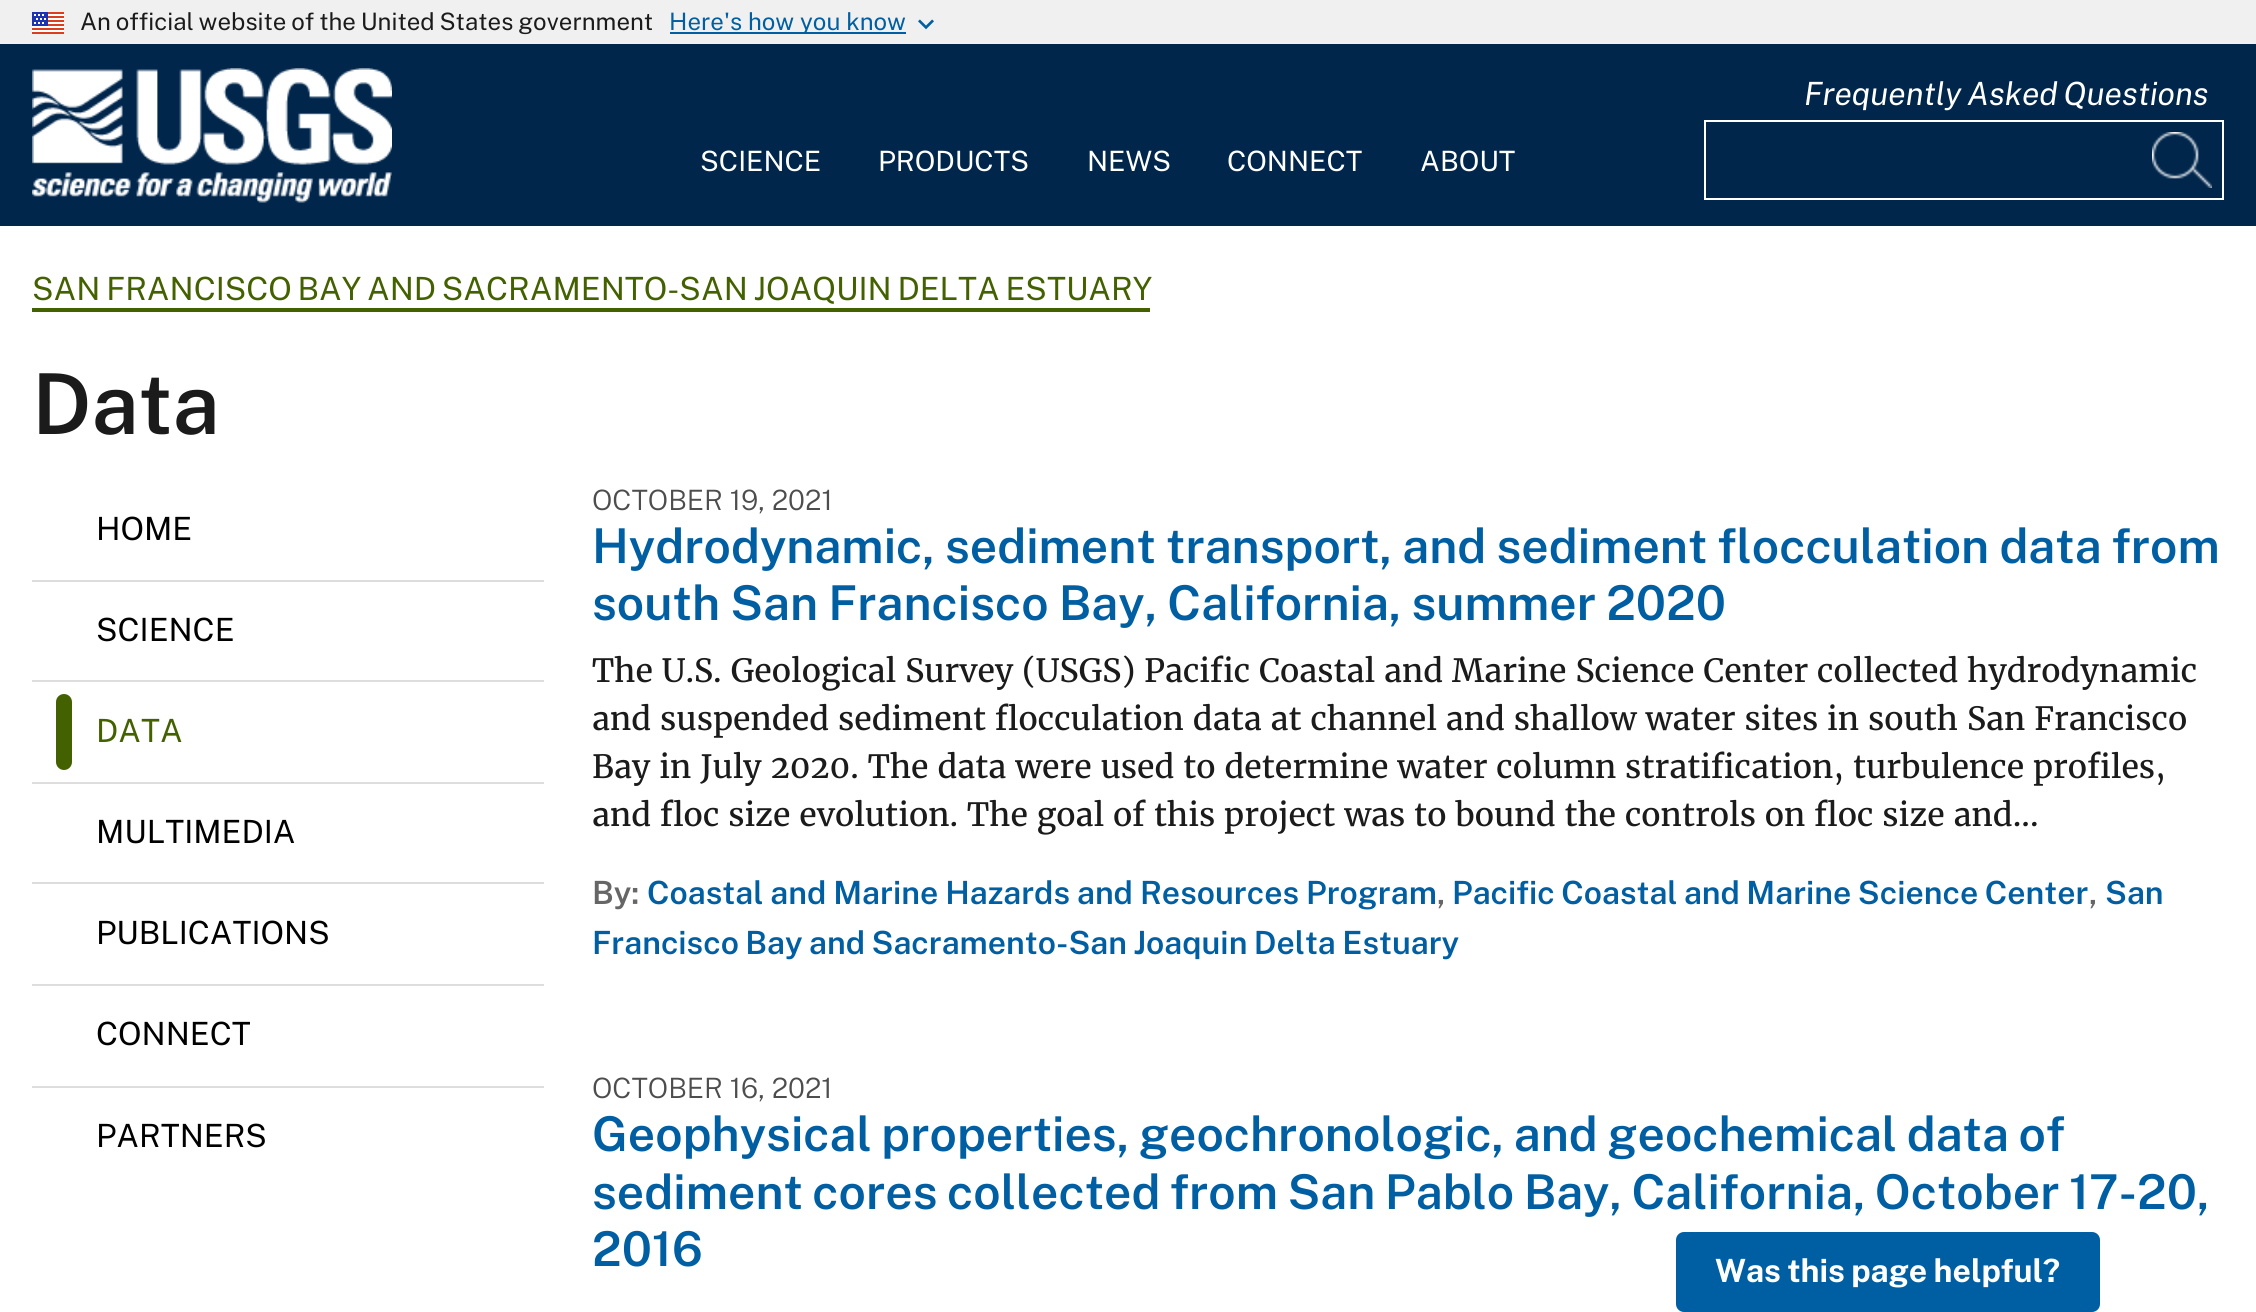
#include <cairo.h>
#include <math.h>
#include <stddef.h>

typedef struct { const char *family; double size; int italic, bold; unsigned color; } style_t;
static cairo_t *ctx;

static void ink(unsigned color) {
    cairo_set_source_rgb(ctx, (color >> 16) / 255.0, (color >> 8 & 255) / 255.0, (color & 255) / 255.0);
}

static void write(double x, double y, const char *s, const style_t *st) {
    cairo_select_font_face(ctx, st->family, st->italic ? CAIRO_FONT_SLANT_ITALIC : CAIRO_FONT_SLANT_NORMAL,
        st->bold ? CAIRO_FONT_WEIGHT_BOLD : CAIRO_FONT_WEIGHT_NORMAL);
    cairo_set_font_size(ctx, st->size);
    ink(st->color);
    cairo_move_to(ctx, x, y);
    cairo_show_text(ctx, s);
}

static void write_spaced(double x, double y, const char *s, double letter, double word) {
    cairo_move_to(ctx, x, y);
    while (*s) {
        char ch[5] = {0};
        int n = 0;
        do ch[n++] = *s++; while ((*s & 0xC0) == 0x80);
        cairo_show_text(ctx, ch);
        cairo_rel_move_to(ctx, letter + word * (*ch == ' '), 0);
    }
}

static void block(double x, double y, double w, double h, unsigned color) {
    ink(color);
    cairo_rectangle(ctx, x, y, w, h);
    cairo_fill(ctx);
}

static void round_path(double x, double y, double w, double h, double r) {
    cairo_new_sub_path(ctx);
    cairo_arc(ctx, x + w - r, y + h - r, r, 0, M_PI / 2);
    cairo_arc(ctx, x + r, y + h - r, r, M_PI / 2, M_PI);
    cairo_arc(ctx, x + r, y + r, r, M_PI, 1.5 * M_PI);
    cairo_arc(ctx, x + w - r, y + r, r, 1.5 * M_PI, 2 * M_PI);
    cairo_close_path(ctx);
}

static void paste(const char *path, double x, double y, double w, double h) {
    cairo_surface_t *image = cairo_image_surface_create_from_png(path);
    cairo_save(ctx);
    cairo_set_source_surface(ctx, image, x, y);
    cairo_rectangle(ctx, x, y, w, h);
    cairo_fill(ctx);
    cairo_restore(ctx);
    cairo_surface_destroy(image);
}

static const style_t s1 = {"Public Sans", 24, 0, 0, 0x005ea2};
static const style_t s2 = {"Public Sans", 28, 0, 0, 0xffffff};
static const style_t s3 = {"Public Sans SemiBold", 84, 0, 0, 0x1b1b1b};
static const style_t s4 = {"Public Sans", 32, 0, 0, 0x000000};
static const style_t s5 = {"Public Sans", 32, 0, 0, 0x446100};
static const style_t s6 = {"Public Sans Light", 28, 0, 0, 0x4d4d4d};
static const style_t s7 = {"Merriweather", 32, 0, 0, 0x1b1b1b};
static const style_t s8 = {"Public Sans SemiBold", 32, 0, 0, 0x666666};
static const style_t s9 = {"Public Sans SemiBold", 32, 0, 0, 0x005ea2};
static const style_t s10 = {"Public Sans SemiBold", 48, 0, 0, 0x005ea2};

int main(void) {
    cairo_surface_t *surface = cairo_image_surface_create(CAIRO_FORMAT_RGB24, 2256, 1312);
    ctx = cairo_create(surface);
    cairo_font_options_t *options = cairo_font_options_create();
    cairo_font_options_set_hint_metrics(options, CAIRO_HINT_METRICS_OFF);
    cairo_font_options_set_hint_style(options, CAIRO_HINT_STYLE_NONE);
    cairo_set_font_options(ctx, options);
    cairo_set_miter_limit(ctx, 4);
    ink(0xffffff);
    cairo_paint(ctx);
    block(0, 0, 2256, 44, 0xf0f0f0);
    paste("pic1.png", 32, 12, 32, 22);
    cairo_select_font_face(ctx, "Public Sans", CAIRO_FONT_SLANT_NORMAL, CAIRO_FONT_WEIGHT_NORMAL);
    cairo_set_font_size(ctx, 24);
    ink(0x1b1b1b);
    write_spaced(80, 30, "An official website of the United States government", 0, -1);
    block(670, 32, 236, 2, 0x005ea2);
    write(669, 30, "Here's how you know", &s1);
    paste("pic2.png", 918, 19, 16, 11);
    block(0, 44, 2256, 182, 0x00264c);
    paste("pic3.png", 32, 68, 360, 135);
    cairo_select_font_face(ctx, "Public Sans", CAIRO_FONT_SLANT_ITALIC, CAIRO_FONT_WEIGHT_NORMAL);
    cairo_set_font_size(ctx, 32);
    ink(0xffffff);
    write_spaced(1804, 105, "Frequently Asked Questions", 0, -2);
    cairo_rectangle(ctx, 1705, 121, 518, 78);
    cairo_stroke(ctx);
    paste("pic4.png", 2152, 132, 60, 56);
    write(700, 171, "SCIENCE", &s2);
    write(878, 171, "PRODUCTS", &s2);
    write(1087, 171, "NEWS", &s2);
    write(1227, 171, "CONNECT", &s2);
    write(1420, 171, "ABOUT", &s2);
    cairo_set_font_size(ctx, 32);
    ink(0x446100);
    write_spaced(32, 300, "SAN FRANCISCO BAY AND SACRAMENTO-SAN JOAQUIN DELTA ESTUARY", 0, -2);
    block(32, 308, 1118, 4, 0x446100);
    write(32, 434, "Data", &s3);
    write(96, 540, "HOME", &s4);
    block(32, 580, 512, 2, 0xdddddd);
    write(96, 641, "SCIENCE", &s4);
    block(32, 680, 512, 2, 0xdddddd);
    ink(0x446100);
    round_path(56, 694, 16, 76, 8);
    cairo_fill(ctx);
    write(96, 742, "DATA", &s5);
    block(32, 782, 512, 2, 0xdddddd);
    write(96, 843, "MULTIMEDIA", &s4);
    block(32, 882, 512, 2, 0xdddddd);
    write(96, 944, "PUBLICATIONS", &s4);
    block(32, 984, 512, 2, 0xdddddd);
    write(96, 1045, "CONNECT", &s4);
    block(32, 1086, 512, 2, 0xdddddd);
    write(96, 1147, "PARTNERS", &s4);
    write(592, 510, "OCTOBER 19, 2021", &s6);
    cairo_select_font_face(ctx, "Public Sans SemiBold", CAIRO_FONT_SLANT_NORMAL, CAIRO_FONT_WEIGHT_NORMAL);
    cairo_set_font_size(ctx, 48);
    ink(0x005ea2);
    write_spaced(592, 563, "Hydrodynamic, sediment transport, and sediment flocculation data from", 0, -1);
    write_spaced(592, 620, "south San Francisco Bay, California, summer 2020", 0, -1);
    write(592, 682, "The U.S. Geological Survey (USGS) Pacific Coastal and Marine Science Center collected hydrodynamic", &s7);
    write(592, 730, "and suspended sediment flocculation data at channel and shallow water sites in south San Francisco", &s7);
    write(592, 778, "Bay in July 2020. The data were used to determine water column stratification, turbulence profiles,", &s7);
    write(592, 826, "and floc size evolution. The goal of this project was to bound the controls on floc size and...", &s7);
    write(592, 904, "By:", &s8);
    ink(0x005ea2);
    write_spaced(647, 904, "Coastal and Marine Hazards and Resources Program", 0, -0.5);
    write(1437, 904, ",", &s8);
    ink(0x005ea2);
    write_spaced(1452, 904, "Pacific Coastal and Marine Science Center", 0, -1);
    write(2089, 904, ",", &s8);
    write(2105, 904, "San", &s9);
    write_spaced(592, 954, "Francisco Bay and Sacramento-San Joaquin Delta Estuary", 0, -1);
    write(592, 1098, "OCTOBER 16, 2021", &s6);
    cairo_select_font_face(ctx, "Public Sans SemiBold", CAIRO_FONT_SLANT_NORMAL, CAIRO_FONT_WEIGHT_NORMAL);
    cairo_set_font_size(ctx, 48);
    ink(0x005ea2);
    write_spaced(592, 1151, "Geophysical properties, geochronologic, and geochemical data of", 0, -1.5);
    write_spaced(592, 1209, "sediment cores collected from San Pablo Bay, California, October 17-20,", 0, -1.75);
    write(592, 1266, "2016", &s10);
    round_path(1676, 1232, 424, 80, 8);
    cairo_fill(ctx);
    cairo_select_font_face(ctx, "Public Sans", CAIRO_FONT_SLANT_NORMAL, CAIRO_FONT_WEIGHT_BOLD);
    cairo_set_font_size(ctx, 32);
    ink(0xffffff);
    write_spaced(1715, 1282, "Was this page helpful?", 0, -1);
    cairo_surface_write_to_png(surface, "screenshot.png");
    cairo_font_options_destroy(options);
    cairo_destroy(ctx);
    cairo_surface_destroy(surface);
    return 0;
}
